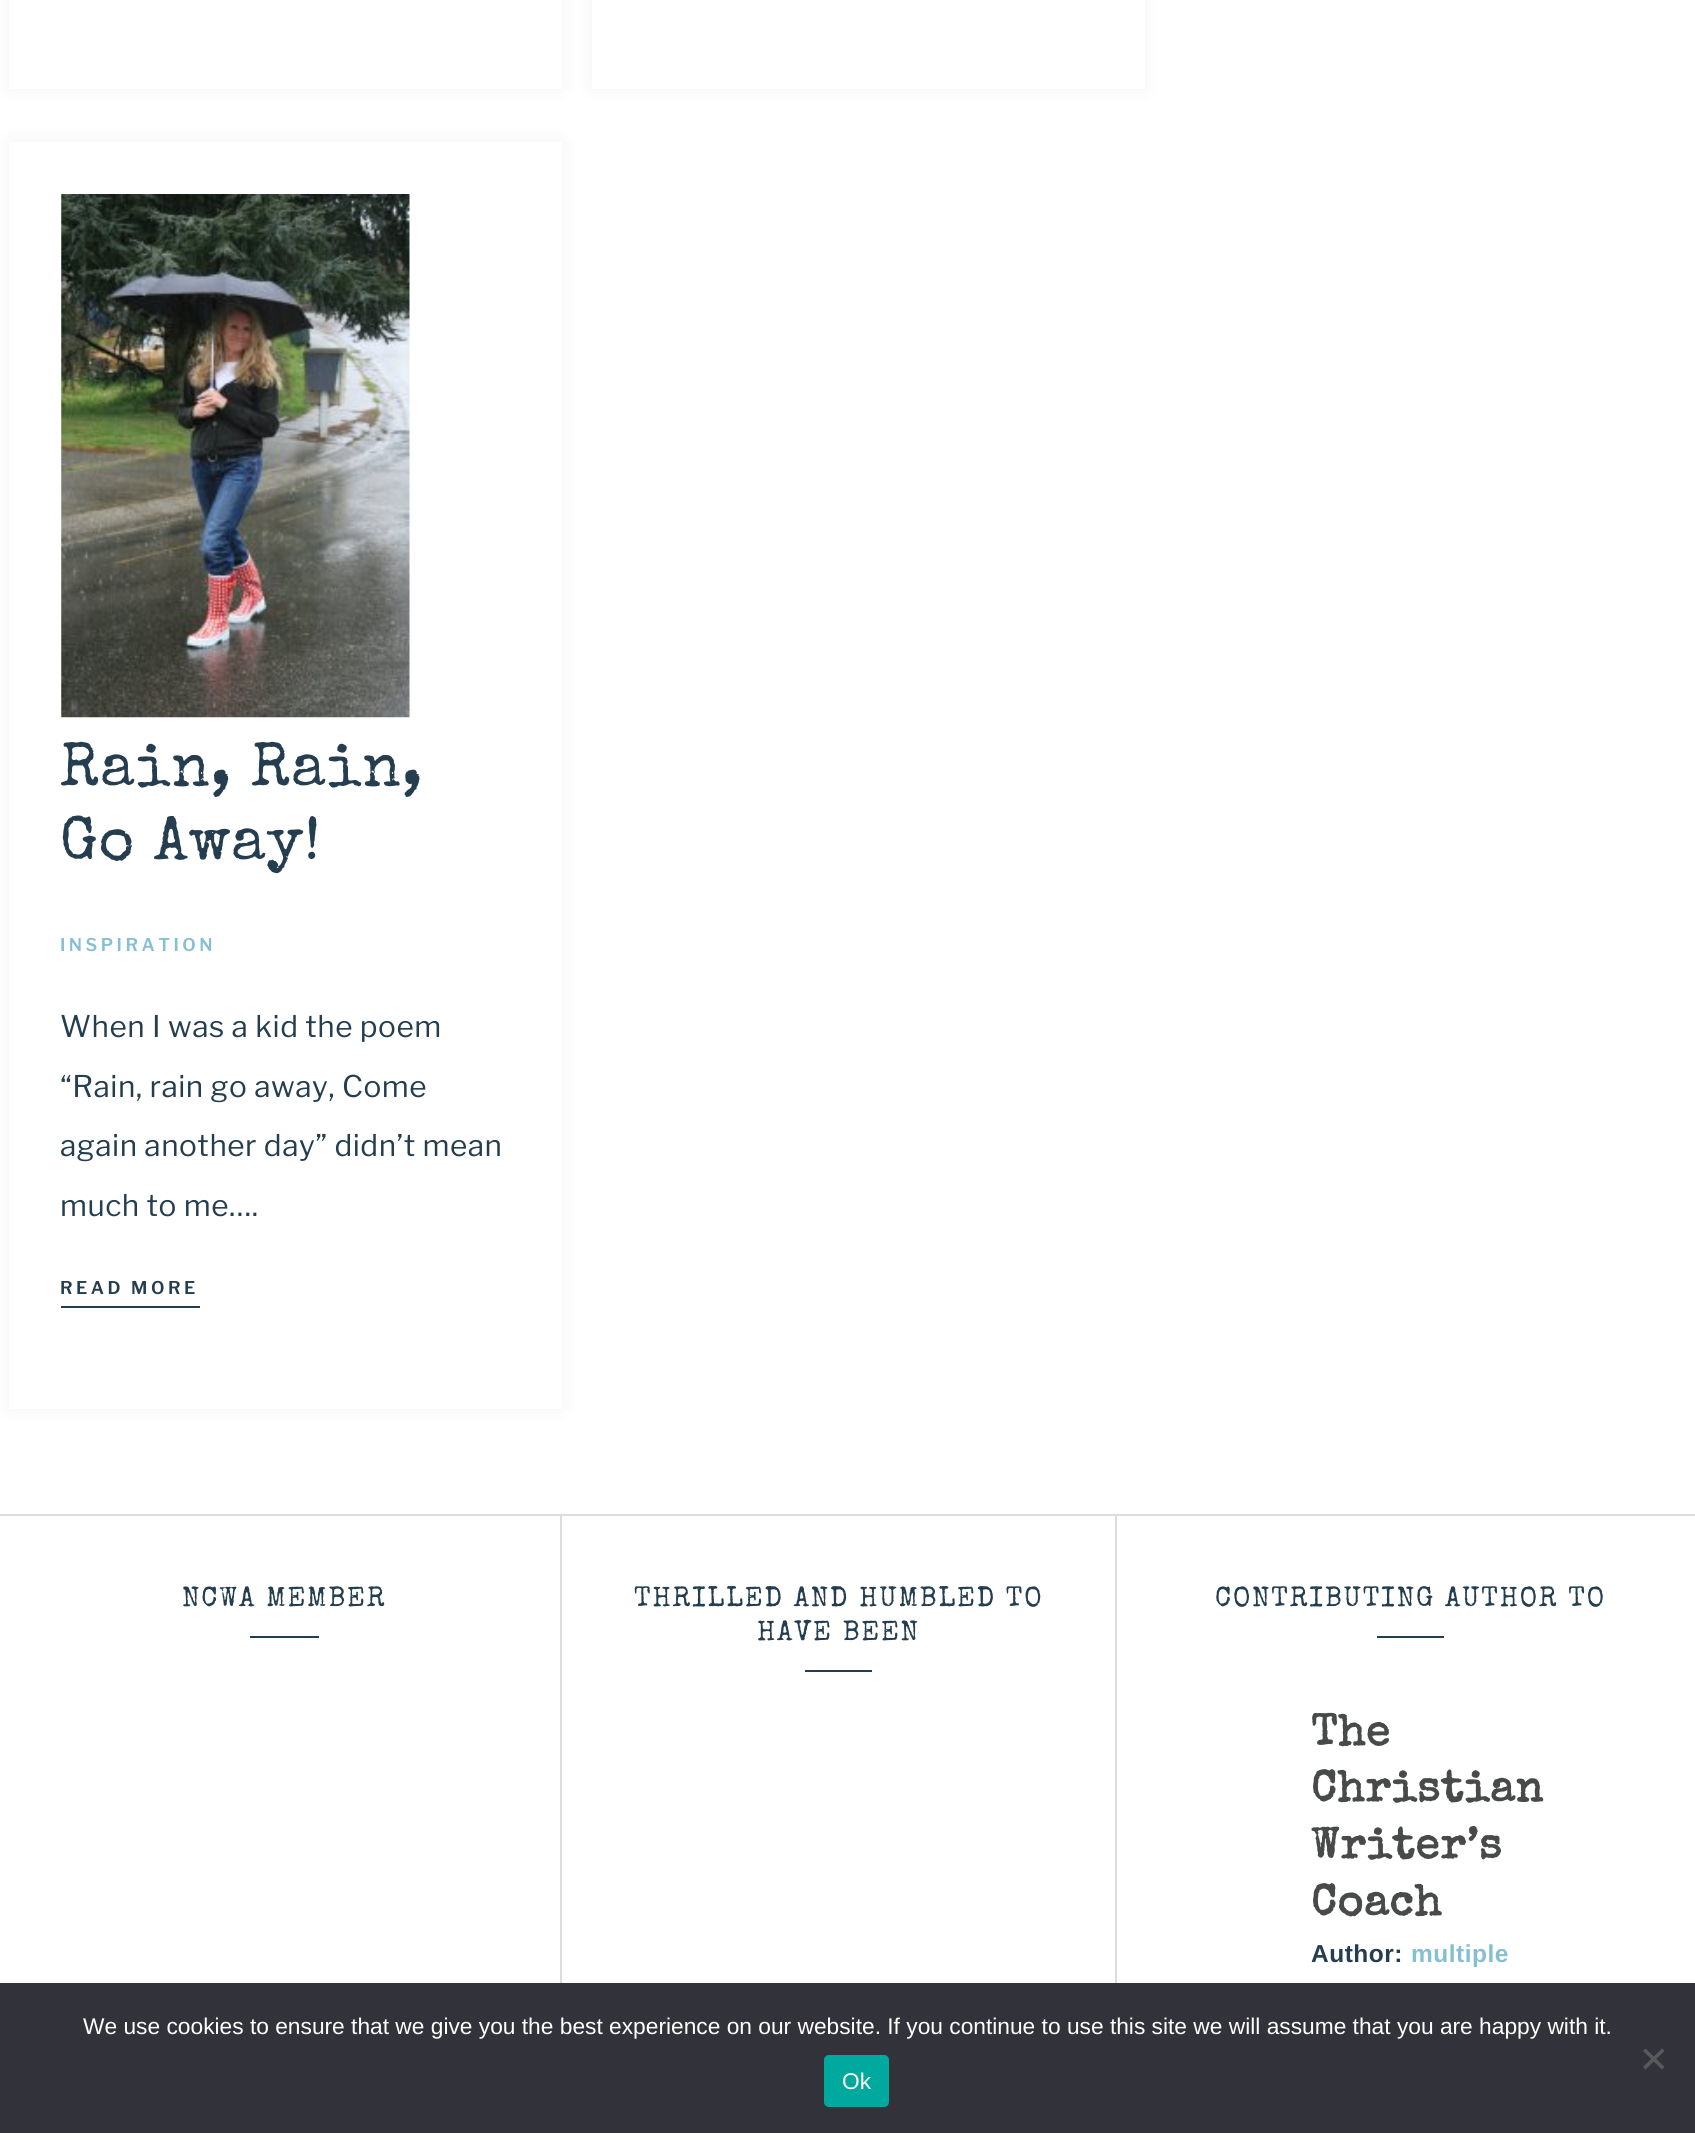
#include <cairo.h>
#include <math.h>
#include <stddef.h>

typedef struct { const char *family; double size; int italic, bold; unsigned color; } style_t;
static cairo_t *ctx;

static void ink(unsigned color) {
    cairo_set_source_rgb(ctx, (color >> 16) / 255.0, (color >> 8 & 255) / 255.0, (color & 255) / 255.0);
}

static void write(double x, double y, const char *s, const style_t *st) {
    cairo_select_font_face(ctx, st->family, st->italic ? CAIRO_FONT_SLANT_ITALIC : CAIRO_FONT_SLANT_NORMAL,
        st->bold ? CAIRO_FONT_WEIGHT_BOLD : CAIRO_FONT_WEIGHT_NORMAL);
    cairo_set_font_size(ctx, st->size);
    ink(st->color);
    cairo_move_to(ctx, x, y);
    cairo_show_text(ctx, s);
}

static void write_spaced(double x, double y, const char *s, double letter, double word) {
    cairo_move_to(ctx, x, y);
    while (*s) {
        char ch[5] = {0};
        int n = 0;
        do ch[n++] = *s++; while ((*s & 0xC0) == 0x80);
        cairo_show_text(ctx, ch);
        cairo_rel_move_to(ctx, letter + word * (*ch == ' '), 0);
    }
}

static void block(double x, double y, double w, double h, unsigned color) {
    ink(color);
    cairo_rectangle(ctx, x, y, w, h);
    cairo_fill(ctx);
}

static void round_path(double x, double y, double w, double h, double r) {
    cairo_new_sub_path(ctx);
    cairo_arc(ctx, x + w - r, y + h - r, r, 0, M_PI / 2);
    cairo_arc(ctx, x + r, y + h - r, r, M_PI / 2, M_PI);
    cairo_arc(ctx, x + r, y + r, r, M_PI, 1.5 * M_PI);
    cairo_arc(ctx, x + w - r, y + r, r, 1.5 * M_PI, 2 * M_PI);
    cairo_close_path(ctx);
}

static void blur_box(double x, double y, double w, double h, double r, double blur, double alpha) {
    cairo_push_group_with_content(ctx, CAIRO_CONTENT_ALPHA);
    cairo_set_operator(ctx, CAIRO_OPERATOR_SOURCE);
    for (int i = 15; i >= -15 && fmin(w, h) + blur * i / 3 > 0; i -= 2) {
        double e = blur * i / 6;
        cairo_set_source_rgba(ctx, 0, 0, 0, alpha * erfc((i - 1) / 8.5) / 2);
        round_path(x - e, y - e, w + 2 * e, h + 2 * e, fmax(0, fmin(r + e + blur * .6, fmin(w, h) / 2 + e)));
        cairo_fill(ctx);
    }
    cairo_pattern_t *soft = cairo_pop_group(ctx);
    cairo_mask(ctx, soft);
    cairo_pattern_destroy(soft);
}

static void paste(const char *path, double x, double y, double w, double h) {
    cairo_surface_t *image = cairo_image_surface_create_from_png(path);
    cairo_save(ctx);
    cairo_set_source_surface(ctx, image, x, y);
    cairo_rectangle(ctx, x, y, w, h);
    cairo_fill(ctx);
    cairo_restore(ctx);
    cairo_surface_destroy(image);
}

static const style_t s1 = {"Liberation Sans", 22.75, 0, 0, 0xffffff};

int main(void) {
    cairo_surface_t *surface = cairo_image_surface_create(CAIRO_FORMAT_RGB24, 1695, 2133);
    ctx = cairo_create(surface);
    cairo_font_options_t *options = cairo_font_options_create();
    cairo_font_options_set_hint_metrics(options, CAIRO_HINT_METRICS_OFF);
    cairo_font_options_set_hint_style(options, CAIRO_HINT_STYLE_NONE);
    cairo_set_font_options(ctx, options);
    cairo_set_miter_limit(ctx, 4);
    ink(0xffffff);
    cairo_paint(ctx);
    ink(0x000000);
    blur_box(9, -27, 553, 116, 0, 9, 0.05);
    block(9, 0, 553, 89, 0xffffff);
    ink(0x000000);
    blur_box(592, -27, 553, 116, 0, 9, 0.05);
    block(592, 0, 553, 89, 0xffffff);
    ink(0x000000);
    blur_box(9, 142, 553, 1267, 0, 9, 0.05);
    block(9, 142, 553, 1267, 0xffffff);
    paste("pic1.png", 61, 194, 349, 524);
    cairo_select_font_face(ctx, "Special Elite", CAIRO_FONT_SLANT_NORMAL, CAIRO_FONT_WEIGHT_NORMAL);
    cairo_set_font_size(ctx, 61.25);
    ink(0x243e50);
    write_spaced(60, 785, "Rain, Rain,", 0.9, 0);
    write_spaced(60, 859, "Go Away!", 0.9, 0);
    cairo_select_font_face(ctx, "Libre Franklin SemiBold", CAIRO_FONT_SLANT_NORMAL, CAIRO_FONT_WEIGHT_NORMAL);
    cairo_set_font_size(ctx, 17.5);
    ink(0x85c0d2);
    write_spaced(60, 951, "INSPIRATION", 3.5, 0);
    cairo_select_font_face(ctx, "Libre Franklin", CAIRO_FONT_SLANT_NORMAL, CAIRO_FONT_WEIGHT_NORMAL);
    cairo_set_font_size(ctx, 29.75);
    ink(0x243e50);
    write_spaced(60, 1037, "When I was a kid the poem", 0.5, 0);
    write_spaced(60, 1097, "“Rain, rain go away, Come", 0.5, 0);
    write_spaced(60, 1156, "again another day” didn’t mean", 0.5, 0);
    write_spaced(60, 1216, "much to me….", 0.5, 0);
    block(61, 1306, 139, 2, 0x243e50);
    cairo_select_font_face(ctx, "Libre Franklin SemiBold", CAIRO_FONT_SLANT_NORMAL, CAIRO_FONT_WEIGHT_NORMAL);
    cairo_set_font_size(ctx, 17.5);
    write_spaced(60, 1294, "READ MORE", 3.5, 0);
    block(0, 1514, 1695, 2, 0xdddddd);
    block(560, 1516, 2, 467, 0xdddddd);
    cairo_select_font_face(ctx, "Special Elite", CAIRO_FONT_SLANT_NORMAL, CAIRO_FONT_WEIGHT_NORMAL);
    cairo_set_font_size(ctx, 28);
    ink(0x243e50);
    write_spaced(182, 1606, "NCWA MEMBER", 1.75, 0);
    block(250, 1636, 69, 2, 0x243e50);
    block(1115, 1516, 2, 467, 0xdddddd);
    ink(0x243e50);
    write_spaced(634, 1606, "THRILLED AND HUMBLED TO", 1.75, 0);
    write_spaced(757, 1640, "HAVE BEEN", 1.75, 0);
    block(805, 1670, 67, 2, 0x243e50);
    write_spaced(1215, 1606, "CONTRIBUTING AUTHOR TO", 1.75, 0);
    block(1377, 1636, 67, 2, 0x243e50);
    cairo_select_font_face(ctx, "Special Elite", CAIRO_FONT_SLANT_NORMAL, CAIRO_FONT_WEIGHT_BOLD);
    cairo_set_font_size(ctx, 43.75);
    ink(0x484949);
    write_spaced(1311, 1745, "The", 0.9, 0);
    write_spaced(1311, 1801, "Christian", 0.9, 0);
    write_spaced(1311, 1858, "Writer’s", 0.9, 0);
    write_spaced(1311, 1915, "Coach", 0.9, 0);
    cairo_select_font_face(ctx, "Liberation Sans", CAIRO_FONT_SLANT_NORMAL, CAIRO_FONT_WEIGHT_BOLD);
    cairo_set_font_size(ctx, 24.5);
    ink(0x243e50);
    write_spaced(1311, 1962, "Author:", 0.5, 0);
    ink(0x85c0d2);
    write_spaced(1411, 1962, "multiple", 0.5, 0);
    block(0, 1983, 1695, 150, 0x32323a);
    write(83, 2034, "We use cookies to ensure that we give you the best experience on our website. If you continue to use this site we will assume that you are happy with it.", &s1);
    ink(0x59595d);
    cairo_new_path(ctx);
    cairo_move_to(ctx, 1662, 2048.5);
    cairo_line_to(ctx, 1664.5, 2051);
    cairo_line_to(ctx, 1645.5, 2069.5);
    cairo_line_to(ctx, 1643, 2067);
    cairo_close_path(ctx);
    cairo_fill(ctx);
    cairo_new_path(ctx);
    cairo_move_to(ctx, 1643, 2051);
    cairo_line_to(ctx, 1645.5, 2048.5);
    cairo_line_to(ctx, 1664.5, 2067);
    cairo_line_to(ctx, 1662, 2069.5);
    cairo_close_path(ctx);
    cairo_fill(ctx);
    ink(0x00a99d);
    round_path(824, 2055, 65, 52, 5);
    cairo_fill(ctx);
    write(842, 2089, "Ok", &s1);
    cairo_surface_write_to_png(surface, "screenshot.png");
    cairo_font_options_destroy(options);
    cairo_destroy(ctx);
    cairo_surface_destroy(surface);
    return 0;
}
